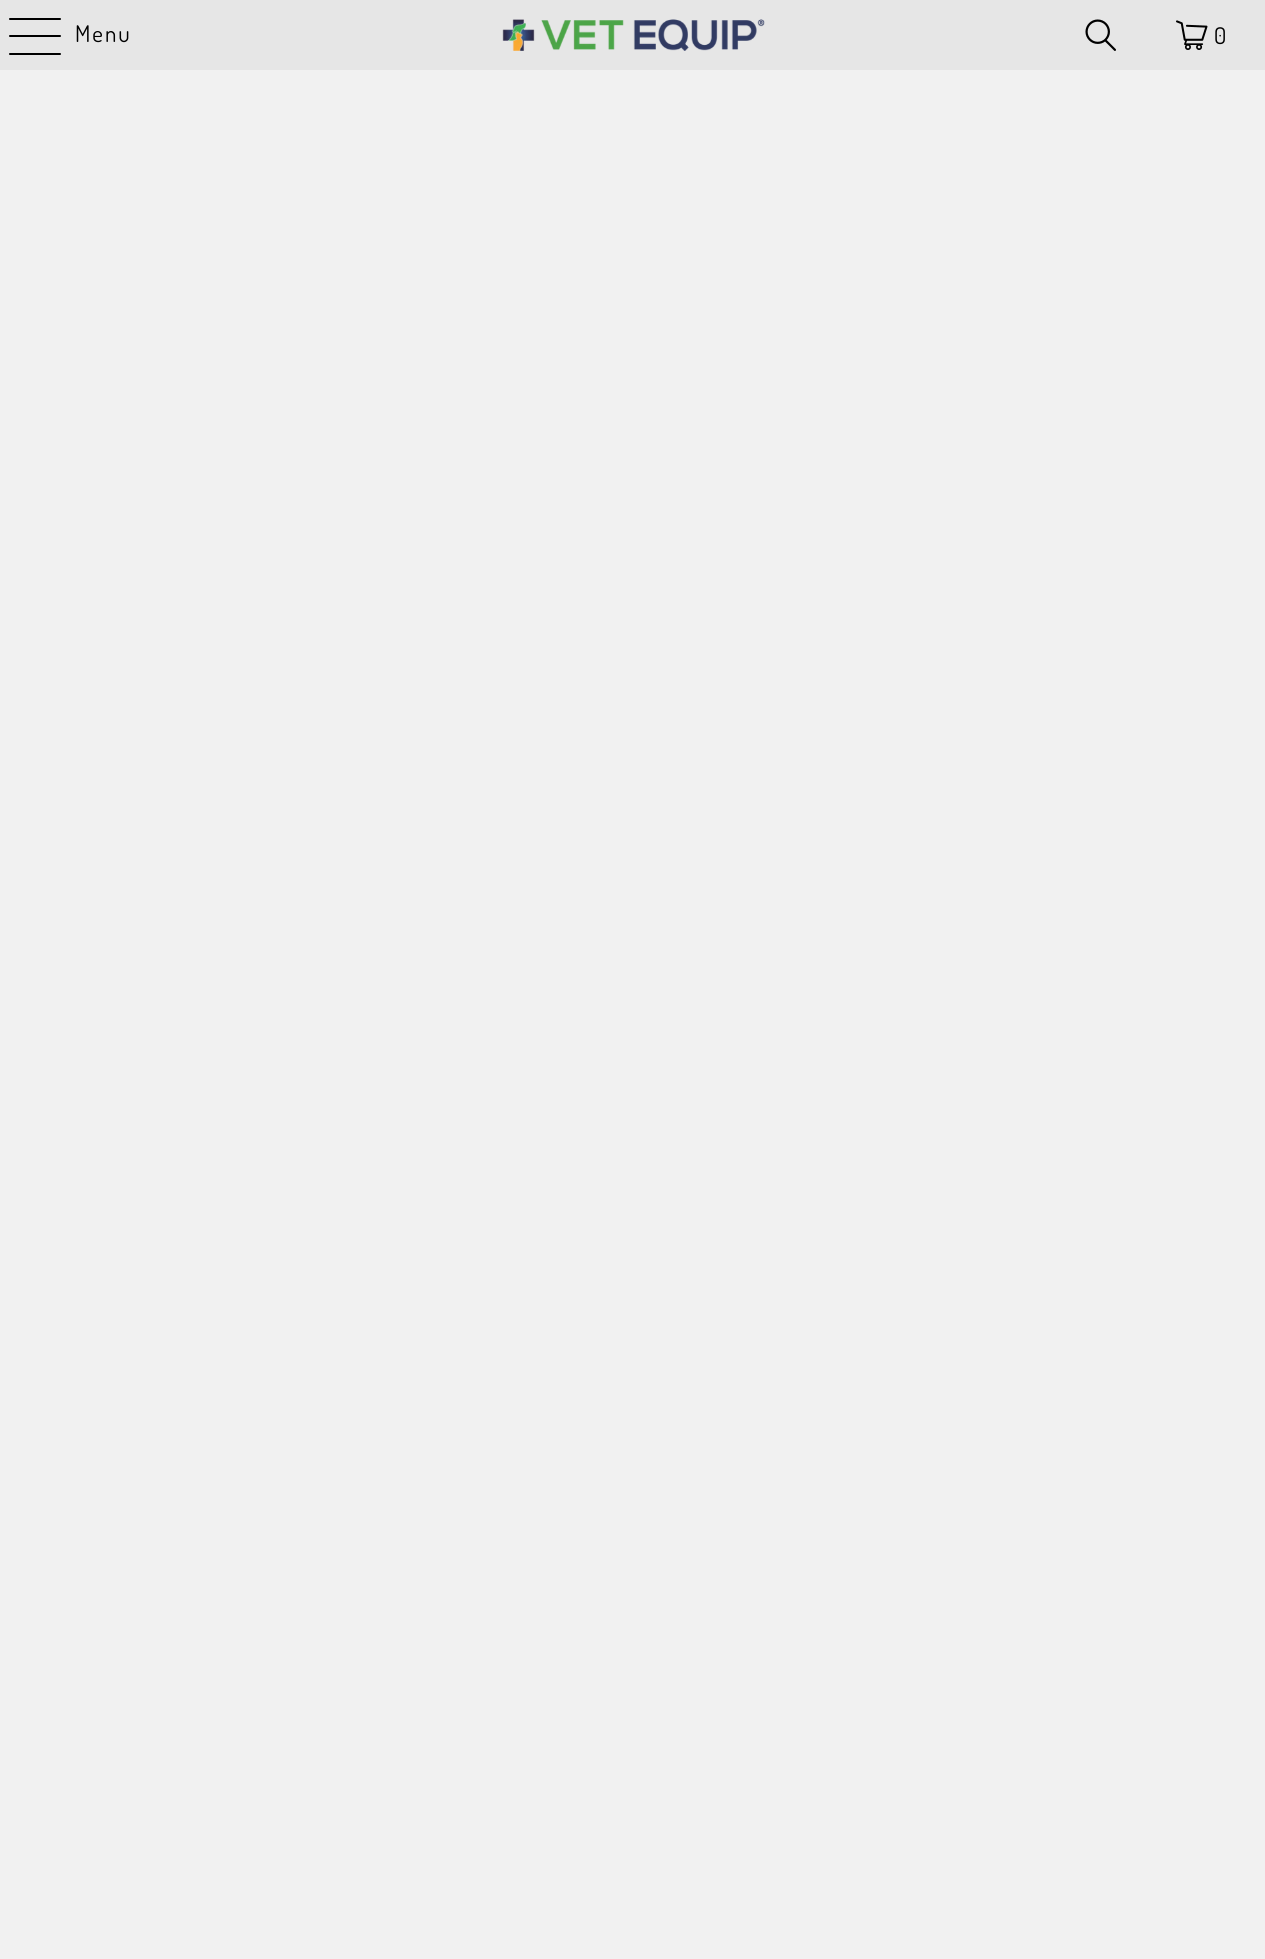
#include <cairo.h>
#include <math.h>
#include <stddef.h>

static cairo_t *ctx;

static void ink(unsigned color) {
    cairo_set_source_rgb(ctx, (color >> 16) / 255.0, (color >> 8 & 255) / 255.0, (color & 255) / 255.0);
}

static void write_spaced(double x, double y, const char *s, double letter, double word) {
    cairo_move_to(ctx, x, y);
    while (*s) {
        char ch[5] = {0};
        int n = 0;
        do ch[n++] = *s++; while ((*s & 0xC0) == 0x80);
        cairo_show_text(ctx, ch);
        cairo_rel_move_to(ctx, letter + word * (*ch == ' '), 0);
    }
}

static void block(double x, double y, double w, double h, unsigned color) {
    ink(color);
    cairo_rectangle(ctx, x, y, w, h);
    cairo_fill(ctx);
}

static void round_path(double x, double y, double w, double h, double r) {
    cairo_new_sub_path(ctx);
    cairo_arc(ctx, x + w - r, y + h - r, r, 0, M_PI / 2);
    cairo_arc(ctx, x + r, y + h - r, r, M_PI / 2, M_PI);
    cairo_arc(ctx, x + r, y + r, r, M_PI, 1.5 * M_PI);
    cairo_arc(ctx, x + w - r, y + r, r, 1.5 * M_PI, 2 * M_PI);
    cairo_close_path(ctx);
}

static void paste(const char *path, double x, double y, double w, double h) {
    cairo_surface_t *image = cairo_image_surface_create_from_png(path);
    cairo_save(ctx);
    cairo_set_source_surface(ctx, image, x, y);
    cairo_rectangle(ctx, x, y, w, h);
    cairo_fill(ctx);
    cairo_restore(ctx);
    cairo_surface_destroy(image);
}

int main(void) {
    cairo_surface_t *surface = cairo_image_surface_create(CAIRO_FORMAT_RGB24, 1265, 1959);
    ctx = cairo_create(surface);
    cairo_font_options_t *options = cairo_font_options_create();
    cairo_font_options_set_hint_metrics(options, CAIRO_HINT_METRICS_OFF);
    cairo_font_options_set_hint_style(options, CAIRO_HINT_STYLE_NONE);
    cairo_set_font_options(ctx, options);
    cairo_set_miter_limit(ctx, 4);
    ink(0xf1f1f1);
    cairo_paint(ctx);
    block(0, 0, 1265, 70, 0xe6e6e6);
    ink(0x000000);
    round_path(9, 18, 52, 2, 1);
    cairo_fill(ctx);
    round_path(9, 35, 52, 2, 1);
    cairo_fill(ctx);
    round_path(9, 53, 52, 2, 1);
    cairo_fill(ctx);
    cairo_select_font_face(ctx, "Dosis", CAIRO_FONT_SLANT_NORMAL, CAIRO_FONT_WEIGHT_NORMAL);
    cairo_set_font_size(ctx, 23);
    write_spaced(75, 42, "Menu", 2, 0);
    paste("pic1.png", 502, 19, 263, 32);
    paste("pic2.png", 1085, 19, 31, 32);
    paste("pic3.png", 1176, 20, 32, 30);
    write_spaced(1214, 44, "0", 2, 0);
    cairo_surface_write_to_png(surface, "screenshot.png");
    cairo_font_options_destroy(options);
    cairo_destroy(ctx);
    cairo_surface_destroy(surface);
    return 0;
}
